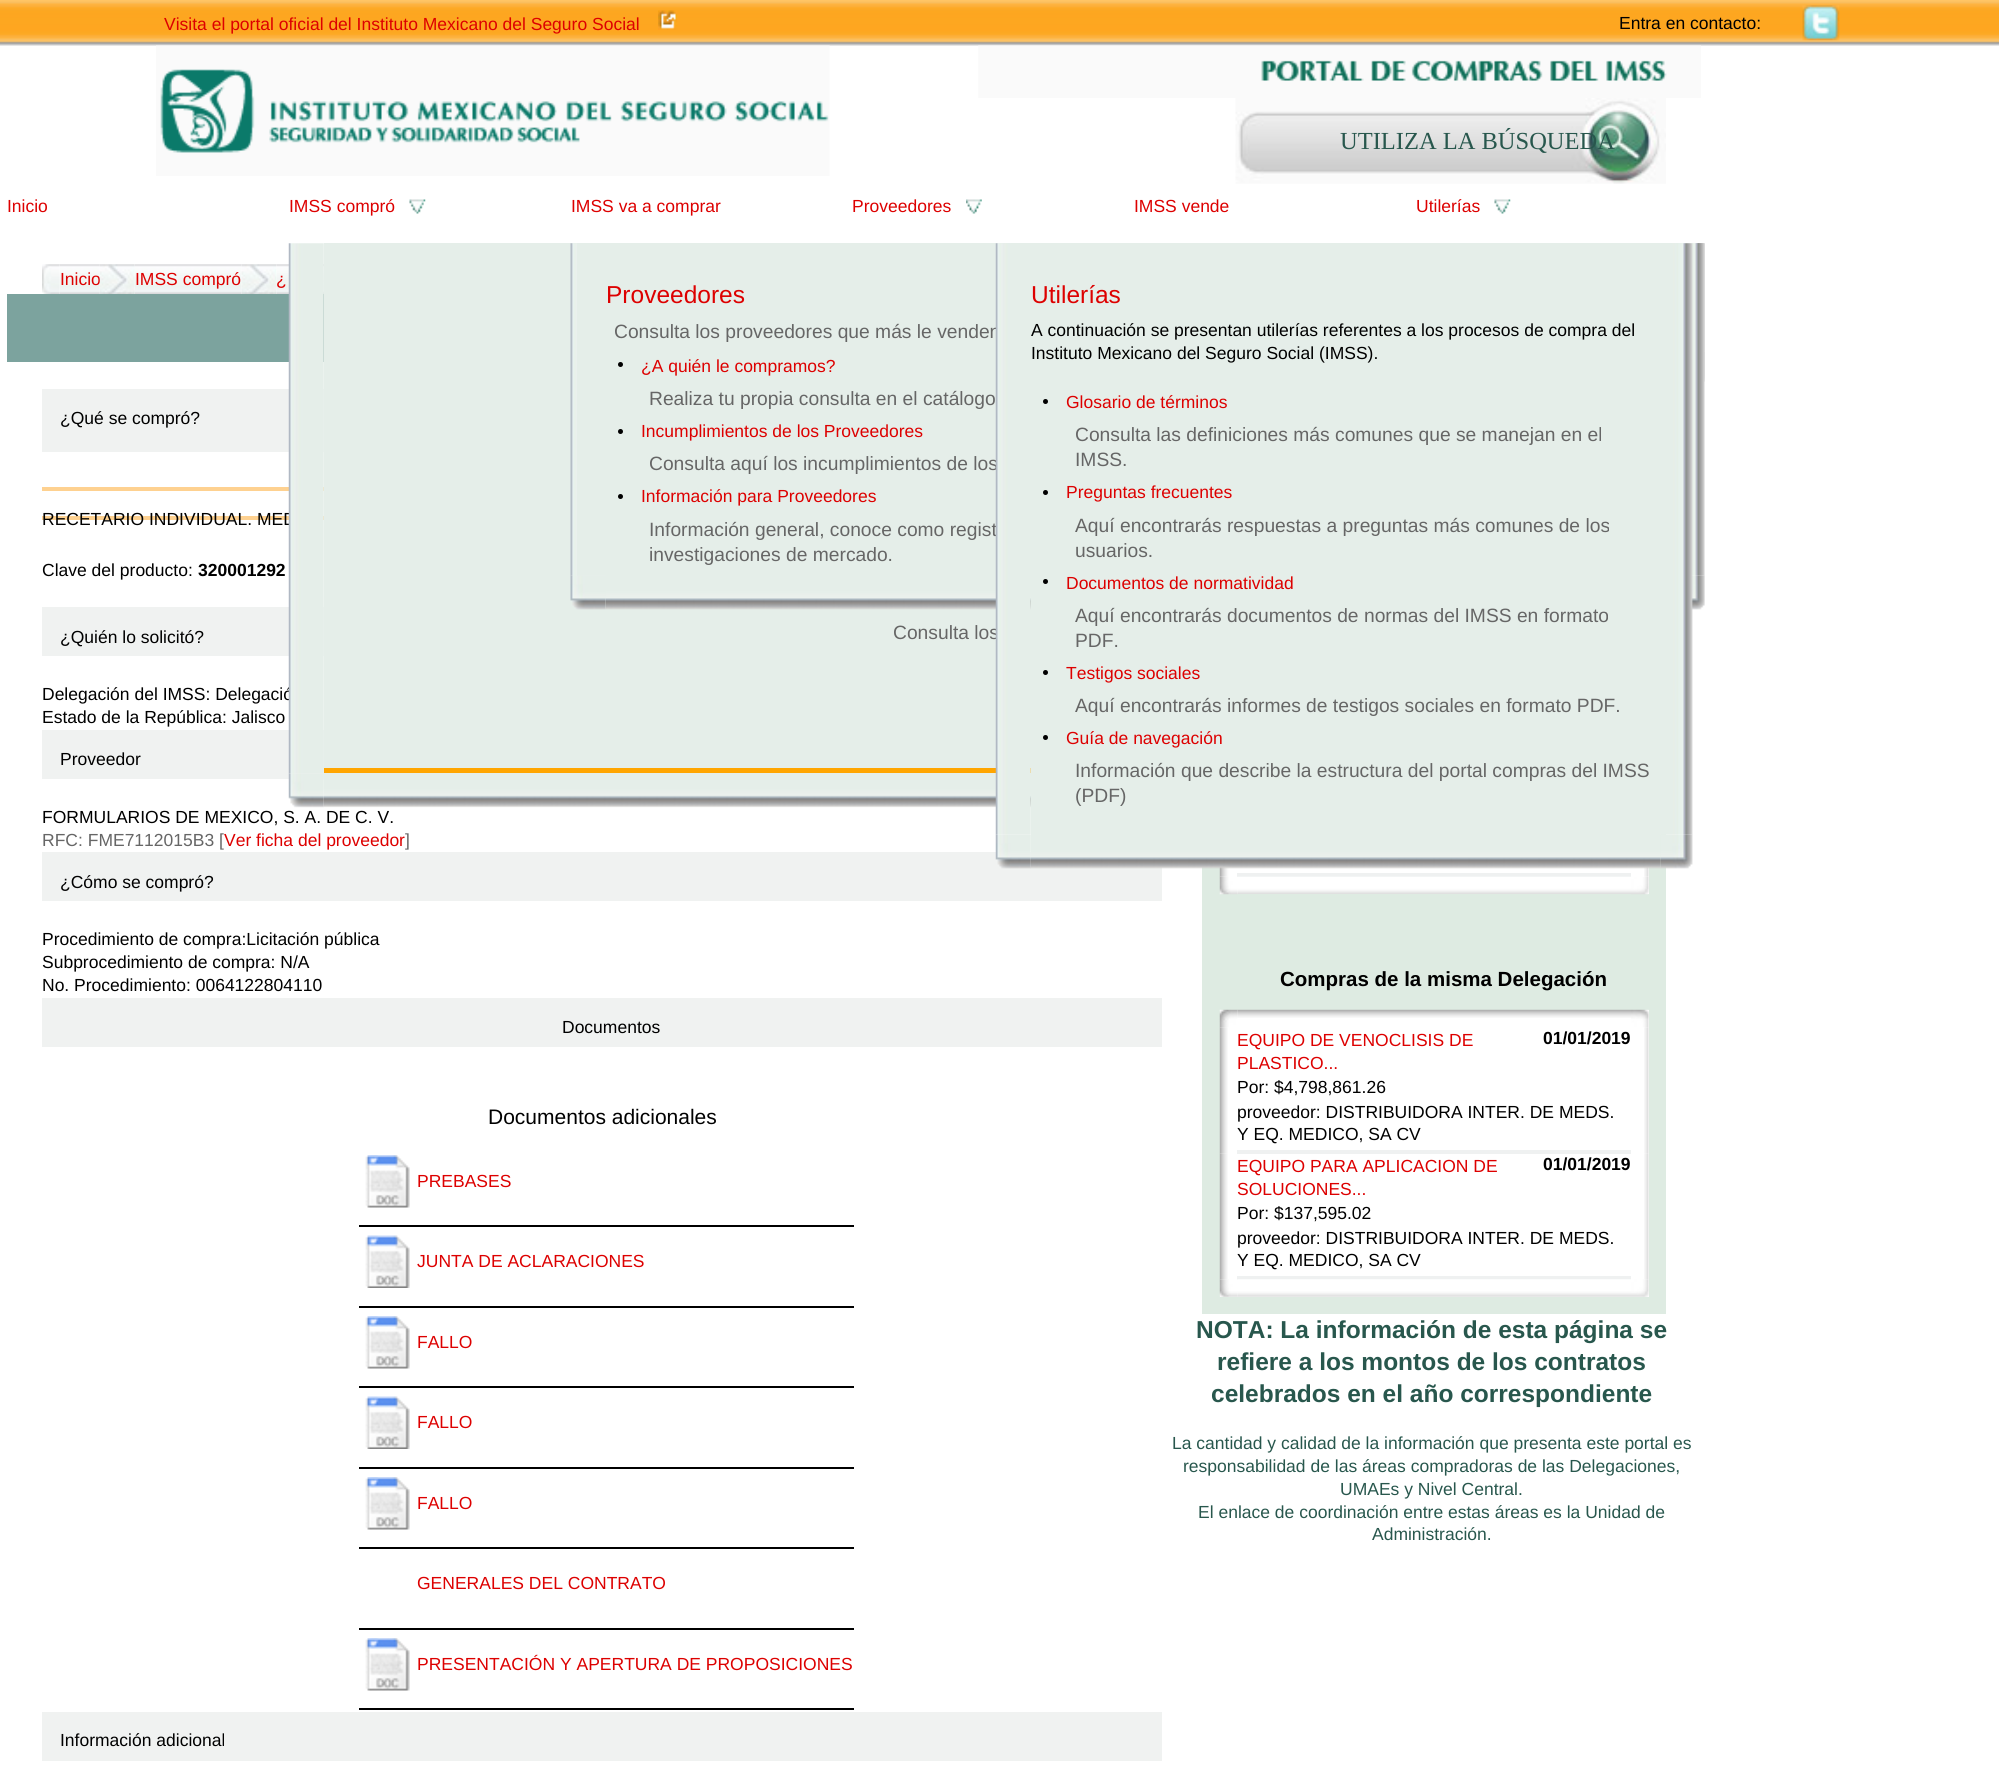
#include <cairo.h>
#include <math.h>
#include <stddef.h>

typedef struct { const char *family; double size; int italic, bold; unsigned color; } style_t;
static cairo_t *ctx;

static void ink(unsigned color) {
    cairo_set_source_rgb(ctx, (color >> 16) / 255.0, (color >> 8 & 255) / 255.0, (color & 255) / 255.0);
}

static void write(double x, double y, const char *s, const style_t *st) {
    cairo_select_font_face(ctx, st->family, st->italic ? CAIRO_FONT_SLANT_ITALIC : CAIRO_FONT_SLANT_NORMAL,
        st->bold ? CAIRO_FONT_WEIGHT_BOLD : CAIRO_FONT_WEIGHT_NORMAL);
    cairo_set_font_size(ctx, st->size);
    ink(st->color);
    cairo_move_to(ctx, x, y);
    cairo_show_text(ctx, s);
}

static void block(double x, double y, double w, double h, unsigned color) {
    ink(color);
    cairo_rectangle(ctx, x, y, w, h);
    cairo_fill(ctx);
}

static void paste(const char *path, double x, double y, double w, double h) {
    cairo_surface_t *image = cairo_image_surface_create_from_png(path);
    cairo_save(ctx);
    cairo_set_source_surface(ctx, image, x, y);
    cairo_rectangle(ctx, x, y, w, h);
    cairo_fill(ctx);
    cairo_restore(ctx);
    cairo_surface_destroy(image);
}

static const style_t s1 = {"Liberation Sans", 17.5, 0, 0, 0xdd0000};
static const style_t s2 = {"Liberation Sans", 17.5, 0, 0, 0x000000};
static const style_t s3 = {"Liberation Serif", 24.5, 0, 0, 0x28574d};
static const style_t s4 = {"Liberation Sans", 24.5, 0, 0, 0xdd0000};
static const style_t s5 = {"Liberation Sans", 19.25, 0, 0, 0x666666};
static const style_t s6 = {"Liberation Sans", 17.5, 0, 1, 0x000000};
static const style_t s7 = {"Liberation Sans", 17.5, 0, 0, 0x666666};
static const style_t s8 = {"Liberation Sans", 21, 0, 0, 0x000000};
static const style_t s9 = {"Liberation Sans", 20.5, 0, 1, 0x000000};
static const style_t s10 = {"Liberation Sans", 24.5, 0, 1, 0x28574d};
static const style_t s11 = {"Liberation Sans", 17.5, 0, 0, 0x28574d};

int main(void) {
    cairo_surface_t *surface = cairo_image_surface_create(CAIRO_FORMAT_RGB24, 1999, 1765);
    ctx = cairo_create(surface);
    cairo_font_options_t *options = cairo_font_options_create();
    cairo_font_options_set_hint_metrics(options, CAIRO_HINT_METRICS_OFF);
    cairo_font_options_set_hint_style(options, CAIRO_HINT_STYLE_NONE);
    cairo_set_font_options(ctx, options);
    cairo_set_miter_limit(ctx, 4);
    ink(0xffffff);
    cairo_paint(ctx);
    paste("pic1.png", 0, 0, 1999, 46);
    write(164, 30, "Visita el portal oficial del Instituto Mexicano del Seguro Social", &s1);
    paste("pic2.png", 658, 10, 20, 20);
    write(1619, 29, "Entra en contacto:", &s2);
    paste("pic3.png", 1802, 5, 38, 36);
    paste("pic4.png", 156, 45, 674, 131);
    paste("pic5.png", 978, 45, 723, 53);
    paste("pic6.png", 1235, 98, 431, 86);
    write(1340, 149, "UTILIZA LA BÚSQUEDA", &s3);
    write(7, 212, "Inicio", &s1);
    write(289, 212, "IMSS compró", &s1);
    paste("pic7.png", 409, 199, 17, 15);
    write(571, 212, "IMSS va a comprar", &s1);
    write(852, 212, "Proveedores", &s1);
    paste("pic8.png", 966, 199, 16, 15);
    write(1134, 212, "IMSS vende", &s1);
    write(1416, 212, "Utilerías", &s1);
    paste("pic7.png", 1494, 199, 17, 15);
    block(324, 243, 707, 531, 0xe5eee9);
    paste("pic9.png", 570, 243, 7, 333);
    block(1031, 243, 642, 333, 0xe5eee9);
    write(606, 303, "Proveedores", &s4);
    write(614, 338, "Consulta los proveedores que más le venden", &s5);
    ink(0x000000);
    cairo_new_path(ctx);
    cairo_arc(ctx, 620.5, 364.5, 2.5, 0, 2 * M_PI);
    cairo_fill(ctx);
    write(641, 372, "¿A quién le compramos?", &s1);
    write(649, 405, "Realiza tu propia consulta en el catálogo", &s5);
    ink(0x000000);
    cairo_new_path(ctx);
    cairo_arc(ctx, 620.5, 431.5, 2.5, 0, 2 * M_PI);
    cairo_fill(ctx);
    write(641, 437, "Incumplimientos de los Proveedores", &s1);
    write(649, 470, "Consulta aquí los incumplimientos de los", &s5);
    ink(0x000000);
    cairo_new_path(ctx);
    cairo_arc(ctx, 620.5, 496.5, 2.5, 0, 2 * M_PI);
    cairo_fill(ctx);
    write(641, 502, "Información para Proveedores", &s1);
    write(649, 536, "Información general, conoce como regist", &s5);
    write(649, 561, "investigaciones de mercado.", &s5);
    paste("pic19.png", 1673, 243, 32, 109);
    paste("pic20.png", 1704, 351, 1, 31);
    paste("pic10.png", 1673, 243, 32, 333);
    paste("pic11.png", 570, 575, 36, 35);
    paste("pic12.png", 605, 576, 426, 34);
    paste("pic13.png", 1691, 575, 14, 35);
    block(324, 768, 707, 5, 0xffa500);
    write(893, 639, "Consulta los", &s5);
    paste("pic27.png", 135, 264, 107, 30);
    paste("pic28.png", 241, 264, 36, 30);
    paste("pic29.png", 276, 264, 48, 30);
    block(7, 294, 317, 68, 0x7ca39e);
    block(42, 389, 282, 63, 0xf0f2f1);
    block(42, 487, 282, 4, 0xfed190);
    block(42, 516, 282, 4, 0xfed190);
    write(42, 525, "RECETARIO INDIVIDUAL. MED", &s2);
    block(42, 607, 282, 49, 0xf0f2f1);
    write(42, 700, "Delegación del IMSS: Delegació", &s2);
    block(42, 730, 282, 49, 0xf0f2f1);
    paste("pic21.png", 288, 243, 36, 531);
    paste("pic22.png", 288, 773, 36, 35);
    paste("pic23.png", 323, 774, 708, 34);
    paste("pic14.png", 995, 243, 36, 592);
    block(1202, 834, 464, 480, 0xdeebe2);
    block(1031, 576, 630, 259, 0xe5eee9);
    write(1031, 303, "Utilerías", &s4);
    write(1031, 336, "A continuación se presentan utilerías referentes a los procesos de compra del", &s2);
    write(1031, 359, "Instituto Mexicano del Seguro Social (IMSS).", &s2);
    cairo_new_path(ctx);
    cairo_arc(ctx, 1045.5, 401.5, 2.5, 0, 2 * M_PI);
    cairo_fill(ctx);
    write(1066, 408, "Glosario de términos", &s1);
    write(1075, 441, "Consulta las definiciones más comunes que se manejan en el", &s5);
    write(1075, 466, "IMSS.", &s5);
    ink(0x000000);
    cairo_new_path(ctx);
    cairo_arc(ctx, 1045.5, 492.5, 2.5, 0, 2 * M_PI);
    cairo_fill(ctx);
    write(1066, 498, "Preguntas frecuentes", &s1);
    write(1075, 532, "Aquí encontrarás respuestas a preguntas más comunes de los", &s5);
    write(1075, 557, "usuarios.", &s5);
    ink(0x000000);
    cairo_new_path(ctx);
    cairo_arc(ctx, 1045.5, 581.5, 2.5, 0, 2 * M_PI);
    cairo_fill(ctx);
    write(1066, 589, "Documentos de normatividad", &s1);
    write(1075, 622, "Aquí encontrarás documentos de normas del IMSS en formato", &s5);
    write(1075, 647, "PDF.", &s5);
    ink(0x000000);
    cairo_new_path(ctx);
    cairo_arc(ctx, 1045.5, 672.5, 2.5, 0, 2 * M_PI);
    cairo_fill(ctx);
    write(1066, 679, "Testigos sociales", &s1);
    write(1075, 712, "Aquí encontrarás informes de testigos sociales en formato PDF.", &s5);
    ink(0x000000);
    cairo_new_path(ctx);
    cairo_arc(ctx, 1045.5, 737.5, 2.5, 0, 2 * M_PI);
    cairo_fill(ctx);
    write(1066, 744, "Guía de navegación", &s1);
    write(1075, 777, "Información que describe la estructura del portal compras del IMSS", &s5);
    write(1075, 802, "(PDF)", &s5);
    paste("pic15.png", 1661, 243, 32, 592);
    block(42, 852, 1120, 49, 0xf0f2f1);
    paste("pic16.png", 995, 834, 36, 35);
    block(1220, 867, 429, 27, 0xffffff);
    paste("pic32.png", 1219, 867, 19, 10);
    paste("pic33.png", 1644, 867, 5, 10);
    paste("pic17.png", 1030, 835, 631, 34);
    paste("pic18.png", 1660, 834, 33, 35);
    paste("pic24.png", 42, 264, 18, 30);
    paste("pic25.png", 59, 264, 41, 30);
    write(60, 285, "Inicio", &s1);
    paste("pic26.png", 99, 264, 36, 30);
    write(135, 285, "IMSS compró", &s1);
    write(276, 285, "¿", &s1);
    write(60, 424, "¿Qué se compró?", &s2);
    write(42, 576, "Clave del producto:", &s2);
    write(198, 576, "320001292", &s6);
    write(60, 643, "¿Quién lo solicitó?", &s2);
    write(42, 723, "Estado de la República: Jalisco", &s2);
    write(60, 765, "Proveedor", &s2);
    write(42, 823, "FORMULARIOS DE MEXICO, S. A. DE C. V.", &s2);
    write(42, 846, "RFC: FME7112015B3 [", &s7);
    write(224, 846, "Ver ficha del proveedor", &s1);
    write(405, 846, "]", &s7);
    write(60, 888, "¿Cómo se compró?", &s2);
    write(42, 945, "Procedimiento de compra:Licitación pública", &s2);
    write(42, 968, "Subprocedimiento de compra: N/A", &s2);
    write(42, 991, "No. Procedimiento: 0064122804110", &s2);
    block(42, 998, 1120, 49, 0xf0f2f1);
    write(562, 1033, "Documentos", &s2);
    write(488, 1124, "Documentos adicionales", &s8);
    paste("pic30.png", 365, 1155, 45, 53);
    block(359, 1225, 495, 2, 0x000000);
    write(417, 1187, "PREBASES", &s1);
    paste("pic31.png", 365, 1235, 45, 53);
    block(359, 1306, 495, 2, 0x000000);
    write(417, 1267, "JUNTA DE ACLARACIONES", &s1);
    paste("pic30.png", 365, 1316, 45, 53);
    block(359, 1386, 495, 2, 0x000000);
    write(417, 1348, "FALLO", &s1);
    paste("pic31.png", 365, 1396, 45, 53);
    block(359, 1467, 495, 2, 0x000000);
    write(417, 1428, "FALLO", &s1);
    paste("pic30.png", 365, 1477, 45, 53);
    block(359, 1547, 495, 2, 0x000000);
    write(417, 1509, "FALLO", &s1);
    block(359, 1628, 495, 2, 0x000000);
    write(417, 1589, "GENERALES DEL CONTRATO", &s1);
    paste("pic30.png", 365, 1638, 45, 53);
    block(359, 1708, 495, 2, 0x000000);
    write(417, 1670, "PRESENTACIÓN Y APERTURA DE PROPOSICIONES", &s1);
    block(42, 1712, 1120, 49, 0xf0f2f1);
    write(60, 1746, "Información adicional", &s2);
    block(1237, 873, 394, 4, 0xeff1f1);
    paste("pic34.png", 1219, 876, 19, 19);
    paste("pic35.png", 1237, 876, 394, 18);
    paste("pic36.png", 1631, 877, 18, 18);
    write(1280, 986, "Compras de la misma Delegación", &s9);
    block(1220, 1010, 429, 287, 0xffffff);
    paste("pic37.png", 1219, 1009, 19, 19);
    paste("pic38.png", 1237, 1009, 394, 9);
    paste("pic39.png", 1631, 1009, 18, 19);
    paste("pic40.png", 1219, 1027, 9, 127);
    write(1237, 1046, "EQUIPO DE VENOCLISIS DE", &s1);
    write(1543, 1044, "01/01/2019", &s6);
    write(1237, 1069, "PLASTICO...", &s1);
    write(1237, 1093, "Por: $4,798,861.26", &s2);
    write(1237, 1118, "proveedor: DISTRIBUIDORA INTER. DE MEDS.", &s2);
    write(1237, 1140, "Y EQ. MEDICO, SA CV", &s2);
    block(1237, 1150, 394, 4, 0xeff1f1);
    paste("pic41.png", 1644, 1027, 5, 127);
    paste("pic40.png", 1219, 1153, 9, 127);
    write(1237, 1172, "EQUIPO PARA APLICACION DE", &s1);
    write(1543, 1170, "01/01/2019", &s6);
    write(1237, 1195, "SOLUCIONES...", &s1);
    write(1237, 1219, "Por: $137,595.02", &s2);
    write(1237, 1244, "proveedor: DISTRIBUIDORA INTER. DE MEDS.", &s2);
    write(1237, 1266, "Y EQ. MEDICO, SA CV", &s2);
    block(1237, 1276, 394, 4, 0xeff1f1);
    paste("pic41.png", 1644, 1153, 5, 127);
    paste("pic42.png", 1219, 1279, 19, 18);
    paste("pic43.png", 1237, 1279, 394, 18);
    paste("pic44.png", 1631, 1279, 18, 18);
    write(1196, 1338, "NOTA: La información de esta página se", &s10);
    write(1217, 1370, "refiere a los montos de los contratos", &s10);
    write(1211, 1402, "celebrados en el año correspondiente", &s10);
    write(1172, 1449, "La cantidad y calidad de la información que presenta este portal es", &s11);
    write(1183, 1472, "responsabilidad de las áreas compradoras de las Delegaciones,", &s11);
    write(1340, 1495, "UMAEs y Nivel Central.", &s11);
    write(1198, 1518, "El enlace de coordinación entre estas áreas es la Unidad de", &s11);
    write(1372, 1540, "Administración.", &s11);
    cairo_surface_write_to_png(surface, "screenshot.png");
    cairo_font_options_destroy(options);
    cairo_destroy(ctx);
    cairo_surface_destroy(surface);
    return 0;
}
